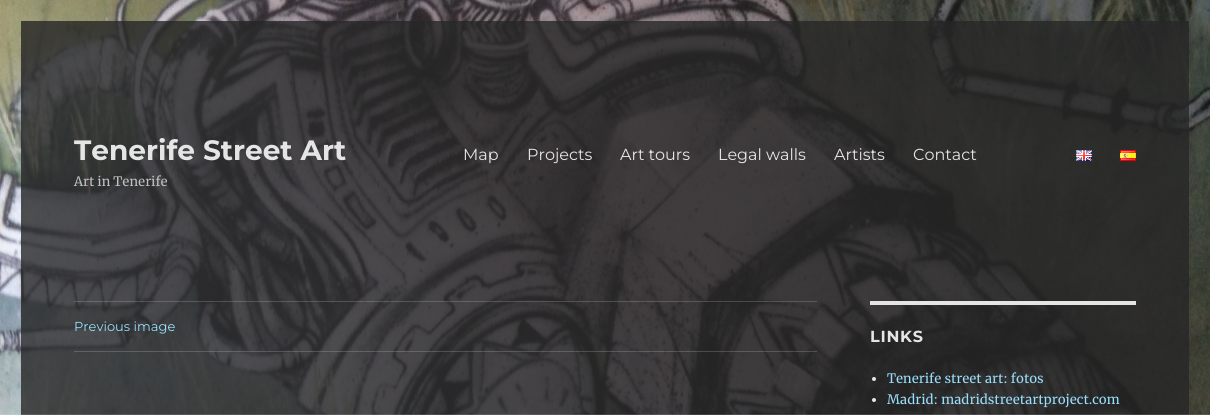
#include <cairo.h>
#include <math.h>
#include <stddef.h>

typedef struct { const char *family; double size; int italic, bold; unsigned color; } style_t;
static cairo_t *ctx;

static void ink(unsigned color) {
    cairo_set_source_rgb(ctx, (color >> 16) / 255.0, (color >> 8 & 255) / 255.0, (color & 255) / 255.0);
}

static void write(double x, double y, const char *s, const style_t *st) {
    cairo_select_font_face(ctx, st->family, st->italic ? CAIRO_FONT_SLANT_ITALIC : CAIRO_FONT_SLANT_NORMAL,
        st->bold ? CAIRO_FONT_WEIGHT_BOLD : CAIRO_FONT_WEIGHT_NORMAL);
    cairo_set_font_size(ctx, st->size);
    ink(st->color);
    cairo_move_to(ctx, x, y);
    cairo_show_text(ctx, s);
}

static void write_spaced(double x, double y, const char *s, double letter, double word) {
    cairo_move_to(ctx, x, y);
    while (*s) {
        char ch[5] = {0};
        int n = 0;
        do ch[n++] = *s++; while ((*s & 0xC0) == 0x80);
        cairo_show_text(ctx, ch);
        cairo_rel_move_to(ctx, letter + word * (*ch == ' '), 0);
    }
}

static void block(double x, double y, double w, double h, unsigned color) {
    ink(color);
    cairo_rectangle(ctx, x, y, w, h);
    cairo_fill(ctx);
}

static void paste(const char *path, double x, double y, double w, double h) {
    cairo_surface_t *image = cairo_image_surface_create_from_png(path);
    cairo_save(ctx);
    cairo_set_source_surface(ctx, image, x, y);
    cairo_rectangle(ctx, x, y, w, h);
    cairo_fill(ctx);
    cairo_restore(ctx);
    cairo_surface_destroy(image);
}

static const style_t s1 = {"Montserrat Thin", 28, 0, 0, 0xe5e5e5};
static const style_t s2 = {"Merriweather", 13, 0, 0, 0xc1c1c1};
static const style_t s3 = {"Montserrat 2 Thin", 16, 0, 0, 0xe5e5e5};
static const style_t s4 = {"Montserrat 2 Thin", 13, 0, 0, 0x9adffd};
static const style_t s5 = {"Merriweather", 13, 0, 0, 0x9adffd};

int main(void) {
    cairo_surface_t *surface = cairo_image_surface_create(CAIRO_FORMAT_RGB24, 1210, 415);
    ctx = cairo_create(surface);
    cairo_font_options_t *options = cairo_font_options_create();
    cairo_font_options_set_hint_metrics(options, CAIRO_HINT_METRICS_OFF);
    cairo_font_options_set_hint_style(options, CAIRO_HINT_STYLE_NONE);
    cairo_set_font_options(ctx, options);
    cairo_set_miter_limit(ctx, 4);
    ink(0xffffff);
    cairo_paint(ctx);
    paste("pic1.png", 0, 0, 1210, 415);
    write(74, 160, "Tenerife Street Art", &s1);
    write(74, 186, "Art in Tenerife", &s2);
    write(463, 160, "Map", &s3);
    write(527, 160, "Projects", &s3);
    write(620, 160, "Art tours", &s3);
    write(718, 160, "Legal walls", &s3);
    write(834, 160, "Artists", &s3);
    write(913, 160, "Contact", &s3);
    paste("pic2.png", 1076, 150, 16, 11);
    paste("pic3.png", 1120, 150, 16, 11);
    cairo_set_source_rgba(ctx, 0.898, 0.898, 0.898, 0.2);
    cairo_rectangle(ctx, 74, 301, 743, 1);
    cairo_fill(ctx);
    cairo_rectangle(ctx, 74, 351, 743, 1);
    cairo_fill(ctx);
    write(74, 331, "Previous image", &s4);
    block(870, 301, 266, 4, 0xe5e5e5);
    cairo_select_font_face(ctx, "Montserrat Thin", CAIRO_FONT_SLANT_NORMAL, CAIRO_FONT_WEIGHT_NORMAL);
    cairo_set_font_size(ctx, 16);
    write_spaced(870, 342, "LINKS", 0.75, 0);
    cairo_new_path(ctx);
    cairo_arc(ctx, 874, 379, 2, 0, 2 * M_PI);
    cairo_fill(ctx);
    write(887, 383, "Tenerife street art: fotos", &s5);
    ink(0xe5e5e5);
    cairo_new_path(ctx);
    cairo_arc(ctx, 874, 400, 2, 0, 2 * M_PI);
    cairo_fill(ctx);
    write(887, 404, "Madrid: madridstreetartproject.com", &s5);
    cairo_surface_write_to_png(surface, "screenshot.png");
    cairo_font_options_destroy(options);
    cairo_destroy(ctx);
    cairo_surface_destroy(surface);
    return 0;
}
